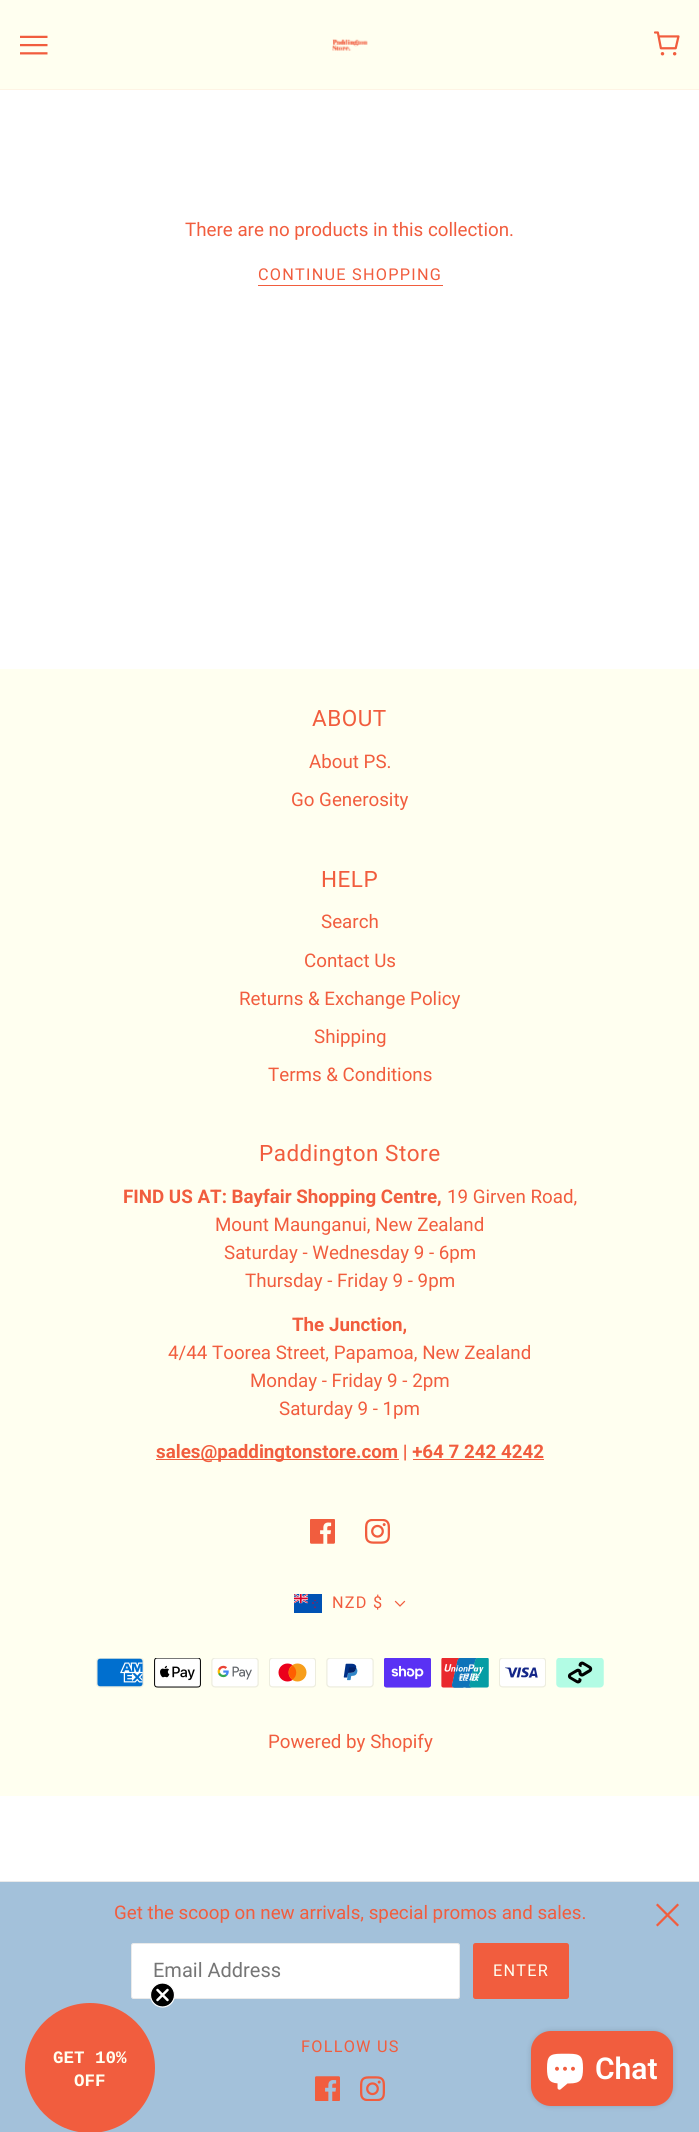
#include <cairo.h>
#include <math.h>
#include <stddef.h>

typedef struct { const char *family; double size; int italic, bold; unsigned color; } style_t;
static cairo_t *ctx;

static void ink(unsigned color) {
    cairo_set_source_rgb(ctx, (color >> 16) / 255.0, (color >> 8 & 255) / 255.0, (color & 255) / 255.0);
}

static void write(double x, double y, const char *s, const style_t *st) {
    cairo_select_font_face(ctx, st->family, st->italic ? CAIRO_FONT_SLANT_ITALIC : CAIRO_FONT_SLANT_NORMAL,
        st->bold ? CAIRO_FONT_WEIGHT_BOLD : CAIRO_FONT_WEIGHT_NORMAL);
    cairo_set_font_size(ctx, st->size);
    ink(st->color);
    cairo_move_to(ctx, x, y);
    cairo_show_text(ctx, s);
}

static void write_spaced(double x, double y, const char *s, double letter, double word) {
    cairo_move_to(ctx, x, y);
    while (*s) {
        char ch[5] = {0};
        int n = 0;
        do ch[n++] = *s++; while ((*s & 0xC0) == 0x80);
        cairo_show_text(ctx, ch);
        cairo_rel_move_to(ctx, letter + word * (*ch == ' '), 0);
    }
}

static void block(double x, double y, double w, double h, unsigned color) {
    ink(color);
    cairo_rectangle(ctx, x, y, w, h);
    cairo_fill(ctx);
}

static void round_path(double x, double y, double w, double h, double r) {
    cairo_new_sub_path(ctx);
    cairo_arc(ctx, x + w - r, y + h - r, r, 0, M_PI / 2);
    cairo_arc(ctx, x + r, y + h - r, r, M_PI / 2, M_PI);
    cairo_arc(ctx, x + r, y + r, r, M_PI, 1.5 * M_PI);
    cairo_arc(ctx, x + w - r, y + r, r, 1.5 * M_PI, 2 * M_PI);
    cairo_close_path(ctx);
}

static void blur_box(double x, double y, double w, double h, double r, double blur, double alpha) {
    cairo_push_group_with_content(ctx, CAIRO_CONTENT_ALPHA);
    cairo_set_operator(ctx, CAIRO_OPERATOR_SOURCE);
    for (int i = 15; i >= -15 && fmin(w, h) + blur * i / 3 > 0; i -= 2) {
        double e = blur * i / 6;
        cairo_set_source_rgba(ctx, 0, 0, 0, alpha * erfc((i - 1) / 8.5) / 2);
        round_path(x - e, y - e, w + 2 * e, h + 2 * e, fmax(0, fmin(r + e + blur * .6, fmin(w, h) / 2 + e)));
        cairo_fill(ctx);
    }
    cairo_pattern_t *soft = cairo_pop_group(ctx);
    cairo_mask(ctx, soft);
    cairo_pattern_destroy(soft);
}

static void paste(const char *path, double x, double y, double w, double h) {
    cairo_surface_t *image = cairo_image_surface_create_from_png(path);
    cairo_save(ctx);
    cairo_set_source_surface(ctx, image, x, y);
    cairo_rectangle(ctx, x, y, w, h);
    cairo_fill(ctx);
    cairo_restore(ctx);
    cairo_surface_destroy(image);
}

static const style_t s1 = {"Roboto", 18.75, 0, 0, 0xf15d3e};
static const style_t s2 = {"Roboto", 18.75, 0, 1, 0xf15d3e};
static const style_t s3 = {"Roboto", 20, 0, 0, 0x757575};
static const style_t s4 = {"Liberation Mono", 17.5, 0, 1, 0xfffff0};
static const style_t s5 = {"Roboto SemiBold", 30, 0, 0, 0xffffff};

int main(void) {
    cairo_surface_t *surface = cairo_image_surface_create(CAIRO_FORMAT_RGB24, 699, 2132);
    ctx = cairo_create(surface);
    cairo_font_options_t *options = cairo_font_options_create();
    cairo_font_options_set_hint_metrics(options, CAIRO_HINT_METRICS_OFF);
    cairo_font_options_set_hint_style(options, CAIRO_HINT_STYLE_NONE);
    cairo_set_font_options(ctx, options);
    cairo_set_miter_limit(ctx, 4);
    ink(0xffffff);
    cairo_paint(ctx);
    block(0, 0, 699, 89, 0xfffff0);
    block(0, 89, 699, 1, 0xfef4e4);
    paste("pic1.png", 20, 35, 28, 20);
    paste("pic2.png", 332, 39, 36, 12);
    paste("pic3.png", 654, 31, 26, 25);
    write(185, 236, "There are no products in this collection.", &s1);
    cairo_set_font_size(ctx, 16.25);
    write_spaced(258, 280, "CONTINUE SHOPPING", 1.25, 0);
    block(258, 285, 185, 1, 0xf15d3e);
    block(0, 669, 699, 1127, 0xfffff0);
    cairo_set_font_size(ctx, 22.5);
    ink(0xf15d3e);
    write_spaced(312, 726, "ABOUT", 0.5, 0);
    write(309, 768, "About PS.", &s1);
    write(291, 806, "Go Generosity", &s1);
    cairo_set_font_size(ctx, 22.5);
    write_spaced(321, 887, "HELP", 0.5, 0);
    write(321, 928, "Search", &s1);
    write(304, 967, "Contact Us", &s1);
    write(239, 1005, "Returns & Exchange Policy", &s1);
    write(314, 1043, "Shipping", &s1);
    write(268, 1081, "Terms & Conditions", &s1);
    cairo_set_font_size(ctx, 22.5);
    write_spaced(259, 1161, "Paddington Store", 0.5, 0);
    write(123, 1203, "FIND US AT: Bayfair Shopping Centre,", &s2);
    write(447, 1203, "19 Girven Road,", &s1);
    write(215, 1231, "Mount Maunganui, New Zealand", &s1);
    write(224, 1259, "Saturday - Wednesday 9 - 6pm", &s1);
    write(245, 1287, "Thursday - Friday 9 - 9pm", &s1);
    write(292, 1331, "The Junction,", &s2);
    write(168, 1359, "4/44 Toorea Street, Papamoa, New Zealand", &s1);
    write(250, 1387, "Monday - Friday 9 - 2pm", &s1);
    write(279, 1415, "Saturday 9 - 1pm", &s1);
    block(156, 1459, 243, 1, 0xf15d3e);
    write(156, 1458, "sales@paddingtonstore.com | +64 7 242 4242", &s2);
    block(413, 1459, 131, 1, 0xf15d3e);
    paste("pic4.png", 310, 1519, 25, 25);
    paste("pic5.png", 365, 1519, 25, 25);
    paste("pic6.png", 294, 1594, 28, 19);
    cairo_select_font_face(ctx, "Roboto", CAIRO_FONT_SLANT_NORMAL, CAIRO_FONT_WEIGHT_NORMAL);
    cairo_set_font_size(ctx, 16.25);
    write_spaced(332, 1608, "NZD $", 1.25, 0);
    paste("pic7.png", 394, 1600, 12, 7);
    paste("pic8.png", 96, 1658, 48, 30);
    paste("pic9.png", 154, 1658, 47, 30);
    paste("pic10.png", 211, 1658, 48, 30);
    paste("pic11.png", 269, 1658, 47, 30);
    paste("pic12.png", 326, 1658, 48, 30);
    paste("pic13.png", 384, 1658, 47, 30);
    paste("pic14.png", 441, 1658, 48, 30);
    paste("pic15.png", 499, 1658, 47, 30);
    paste("pic16.png", 556, 1658, 48, 30);
    write(268, 1748, "Powered by Shopify", &s1);
    block(0, 1882, 699, 250, 0xa3c1da);
    block(0, 1881, 699, 1, 0xeaeaea);
    write(114, 1919, "Get the scoop on new arrivals, special promos and sales.", &s1);
    ink(0xffffff);
    round_path(131.5, 1943.5, 328, 55, 2);
    cairo_fill_preserve(ctx);
    ink(0xeaeaea);
    cairo_set_line_width(ctx, 1);
    cairo_stroke(ctx);
    write(153, 1977, "Email Address", &s3);
    ink(0xf15d3e);
    round_path(473, 1943, 96, 56, 2.5);
    cairo_fill(ctx);
    cairo_set_font_size(ctx, 16.25);
    ink(0xfffff0);
    write_spaced(493, 1976, "ENTER", 1.25, 0);
    paste("pic17.png", 656, 1903, 23, 24);
    ink(0xf15d3e);
    write_spaced(301, 2052, "FOLLOW US", 1.25, 0);
    paste("pic18.png", 315, 2076, 25, 25);
    paste("pic19.png", 360, 2076, 25, 25);
    cairo_arc(ctx, 90, 2068, 65, 0, 2 * M_PI);
    cairo_fill(ctx);
    ink(0x000000);
    cairo_arc(ctx, 162.5, 1995, 12, 0, 2 * M_PI);
    cairo_fill_preserve(ctx);
    ink(0xffffff);
    cairo_set_line_width(ctx, 1.2);
    cairo_stroke(ctx);
    cairo_new_path(ctx);
    cairo_move_to(ctx, 157.5, 1990);
    cairo_line_to(ctx, 167.5, 2000);
    cairo_move_to(ctx, 157.5, 2000);
    cairo_line_to(ctx, 167.5, 1990);
    cairo_close_path(ctx);
    cairo_set_line_width(ctx, 2.5);
    cairo_set_line_cap(ctx, CAIRO_LINE_CAP_ROUND);
    cairo_set_line_join(ctx, CAIRO_LINE_JOIN_ROUND);
    cairo_stroke(ctx);
    write(53, 2063, "GET 10%", &s4);
    write(74, 2086, "OFF", &s4);
    ink(0x000000);
    blur_box(531, 2031, 142, 75, 20, 3, 0.15);
    ink(0xf15d3e);
    round_path(531, 2031, 142, 75, 20);
    cairo_fill(ctx);
    paste("pic20.png", 547, 2053, 36, 37);
    write(595, 2079, "Chat", &s5);
    cairo_surface_write_to_png(surface, "screenshot.png");
    cairo_font_options_destroy(options);
    cairo_destroy(ctx);
    cairo_surface_destroy(surface);
    return 0;
}
